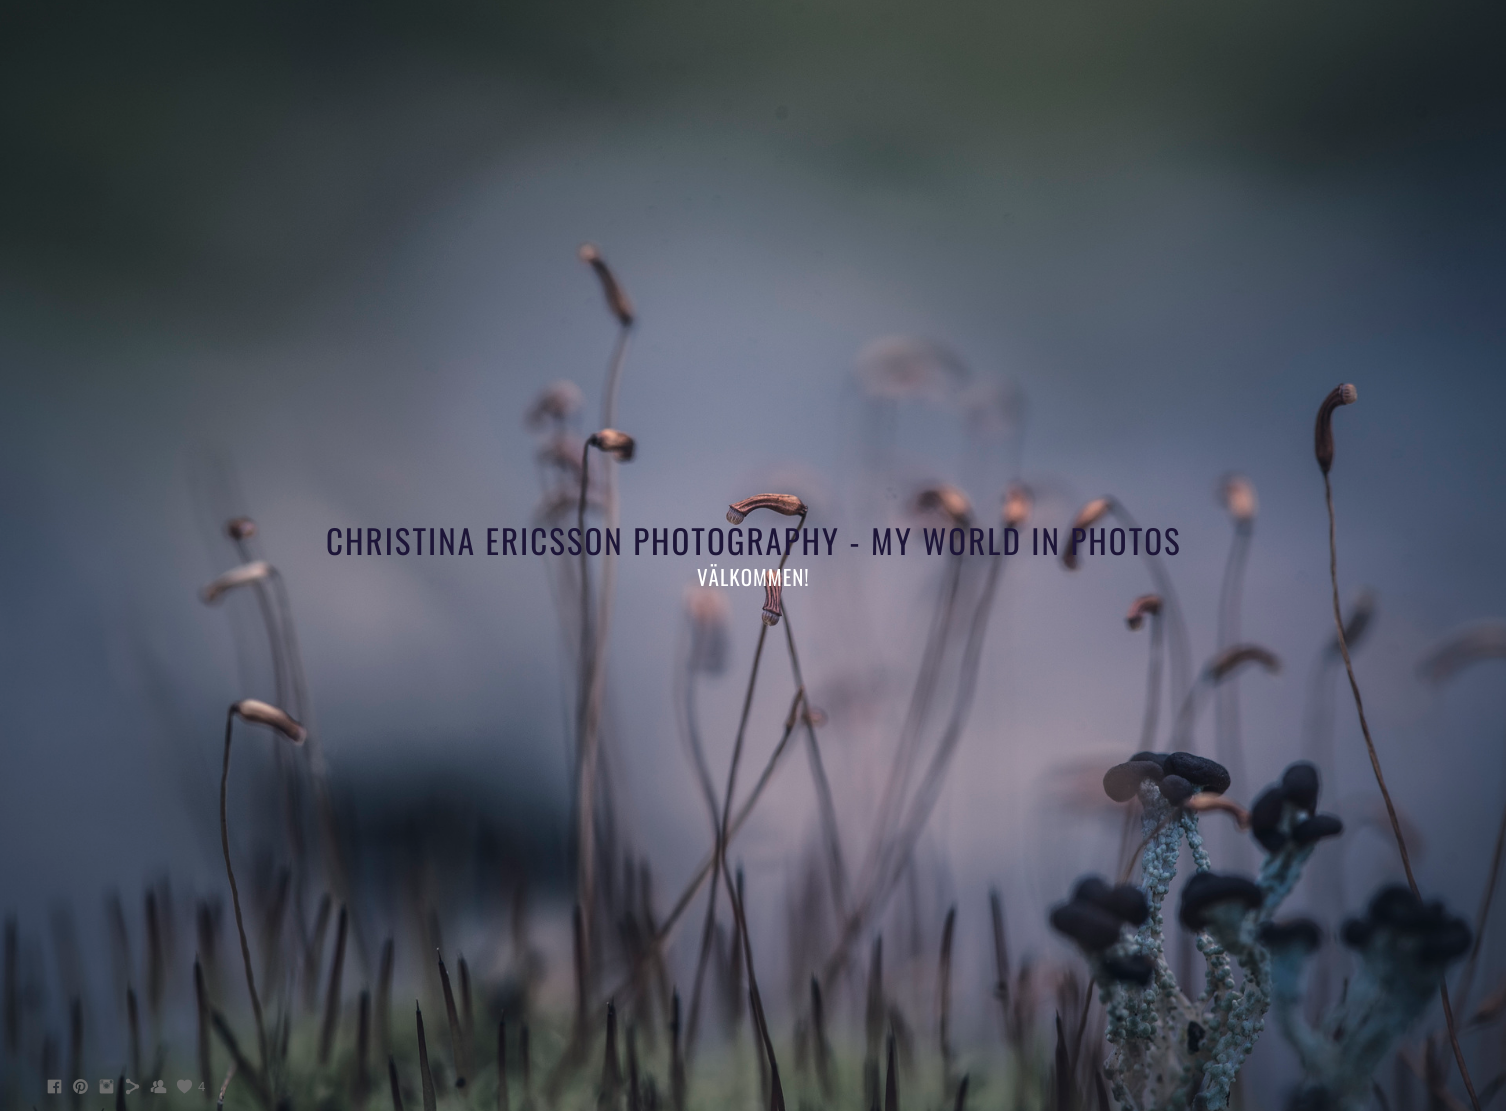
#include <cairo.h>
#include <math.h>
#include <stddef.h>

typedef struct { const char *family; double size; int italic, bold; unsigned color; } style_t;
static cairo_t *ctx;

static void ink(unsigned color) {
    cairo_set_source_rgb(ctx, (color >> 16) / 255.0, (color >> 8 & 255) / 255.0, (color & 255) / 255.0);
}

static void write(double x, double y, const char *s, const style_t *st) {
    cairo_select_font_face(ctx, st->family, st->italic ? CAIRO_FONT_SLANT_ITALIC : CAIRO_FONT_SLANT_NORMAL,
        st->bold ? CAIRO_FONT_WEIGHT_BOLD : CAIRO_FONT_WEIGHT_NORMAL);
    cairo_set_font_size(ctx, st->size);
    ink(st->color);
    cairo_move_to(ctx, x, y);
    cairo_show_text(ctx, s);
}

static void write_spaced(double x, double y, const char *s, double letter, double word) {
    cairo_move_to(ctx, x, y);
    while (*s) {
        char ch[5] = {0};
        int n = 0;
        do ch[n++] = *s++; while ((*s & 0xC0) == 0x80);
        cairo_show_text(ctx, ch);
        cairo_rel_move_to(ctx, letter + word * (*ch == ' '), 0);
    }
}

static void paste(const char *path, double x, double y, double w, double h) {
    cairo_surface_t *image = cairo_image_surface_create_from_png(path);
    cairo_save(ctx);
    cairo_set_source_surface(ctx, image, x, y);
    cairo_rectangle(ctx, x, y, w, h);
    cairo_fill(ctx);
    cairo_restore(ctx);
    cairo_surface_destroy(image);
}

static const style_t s1 = {"Liberation Sans", 13, 0, 0, 0x6b6b6b};

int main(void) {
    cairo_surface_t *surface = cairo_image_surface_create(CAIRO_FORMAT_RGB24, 1506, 1111);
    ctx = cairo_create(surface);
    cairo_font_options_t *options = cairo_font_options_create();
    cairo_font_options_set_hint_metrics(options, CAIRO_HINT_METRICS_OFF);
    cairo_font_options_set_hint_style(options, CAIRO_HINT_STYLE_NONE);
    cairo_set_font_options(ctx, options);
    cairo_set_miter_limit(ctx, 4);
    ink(0xffffff);
    cairo_paint(ctx);
    paste("pic1.png", 0, 0, 1506, 1111);
    cairo_select_font_face(ctx, "Oswald", CAIRO_FONT_SLANT_NORMAL, CAIRO_FONT_WEIGHT_NORMAL);
    cairo_set_font_size(ctx, 33);
    ink(0x1d1538);
    write_spaced(326, 555, "CHRISTINA ERICSSON PHOTOGRAPHY - MY WORLD IN PHOTOS", 2, 0);
    cairo_set_font_size(ctx, 21);
    ink(0xffffff);
    write_spaced(697, 586, "VÄLKOMMEN!", 1, 0);
    paste("pic2.png", 47, 1079, 15, 15);
    paste("pic3.png", 73, 1079, 15, 15);
    paste("pic4.png", 99, 1079, 15, 15);
    paste("pic5.png", 126, 1078, 14, 17);
    paste("pic6.png", 150, 1079, 17, 15);
    paste("pic7.png", 177, 1079, 15, 15);
    write(198, 1091, "4", &s1);
    cairo_surface_write_to_png(surface, "screenshot.png");
    cairo_font_options_destroy(options);
    cairo_destroy(ctx);
    cairo_surface_destroy(surface);
    return 0;
}
